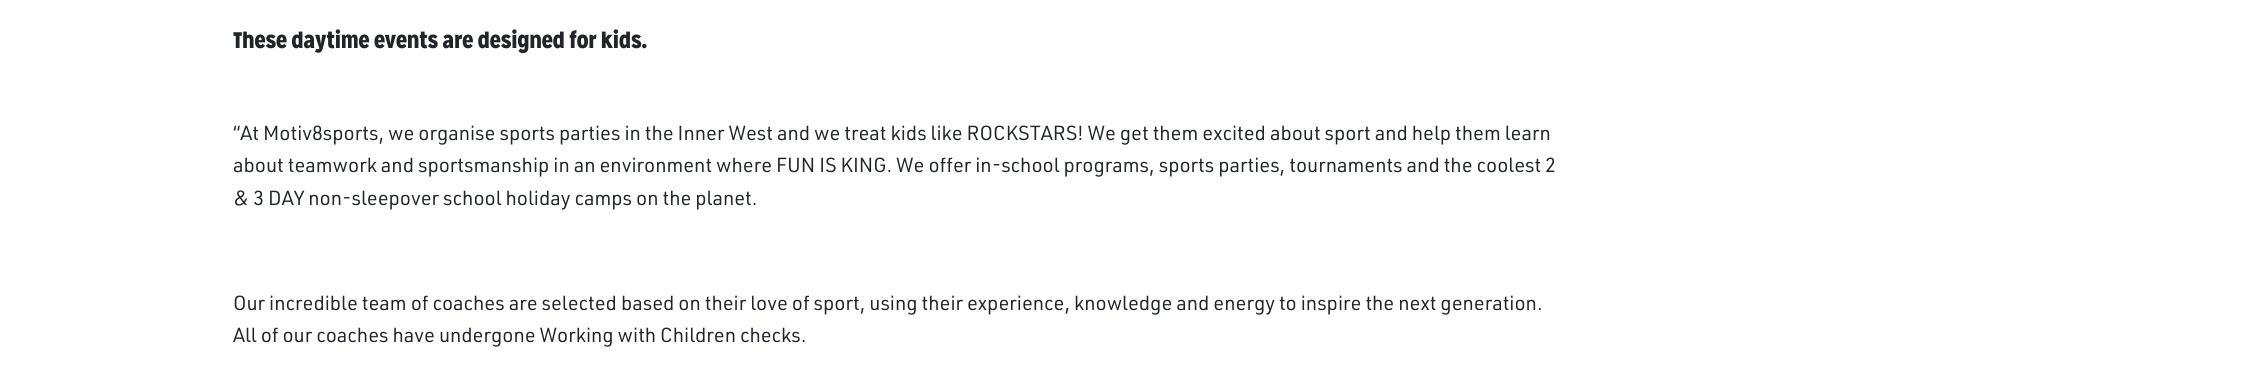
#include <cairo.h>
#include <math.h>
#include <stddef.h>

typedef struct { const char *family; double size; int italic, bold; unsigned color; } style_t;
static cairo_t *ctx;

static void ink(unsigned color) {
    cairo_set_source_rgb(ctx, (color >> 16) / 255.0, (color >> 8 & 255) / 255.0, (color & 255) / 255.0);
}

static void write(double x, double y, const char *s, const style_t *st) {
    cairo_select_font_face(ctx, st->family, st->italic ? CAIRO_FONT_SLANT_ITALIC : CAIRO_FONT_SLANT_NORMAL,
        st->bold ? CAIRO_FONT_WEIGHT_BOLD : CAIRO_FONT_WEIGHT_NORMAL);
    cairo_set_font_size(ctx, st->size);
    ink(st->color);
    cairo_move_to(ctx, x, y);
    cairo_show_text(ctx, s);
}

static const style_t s1 = {"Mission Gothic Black", 22.5, 0, 0, 0x212529};
static const style_t s2 = {"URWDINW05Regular", 20, 0, 0, 0x212529};

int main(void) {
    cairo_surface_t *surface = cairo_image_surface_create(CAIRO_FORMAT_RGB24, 2247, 377);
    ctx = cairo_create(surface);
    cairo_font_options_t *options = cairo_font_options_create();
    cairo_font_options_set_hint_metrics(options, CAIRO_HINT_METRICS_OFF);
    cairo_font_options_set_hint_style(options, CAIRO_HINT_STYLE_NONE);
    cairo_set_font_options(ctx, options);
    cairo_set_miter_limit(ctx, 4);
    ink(0xffffff);
    cairo_paint(ctx);
    write(233, 48, "These daytime events are designed for kids.", &s1);
    write(233, 140, "“At Motiv8sports, we organise sports parties in the Inner West and we treat kids like ROCKSTARS! We get them excited about sport and help them learn", &s2);
    write(233, 172, "about teamwork and sportsmanship in an environment where FUN IS KING. We offer in-school programs, sports parties, tournaments and the coolest 2", &s2);
    write(233, 205, "& 3 DAY non-sleepover school holiday camps on the planet.", &s2);
    write(233, 310, "Our incredible team of coaches are selected based on their love of sport, using their experience, knowledge and energy to inspire the next generation.", &s2);
    write(233, 342, "All of our coaches have undergone Working with Children checks.", &s2);
    cairo_surface_write_to_png(surface, "screenshot.png");
    cairo_font_options_destroy(options);
    cairo_destroy(ctx);
    cairo_surface_destroy(surface);
    return 0;
}
